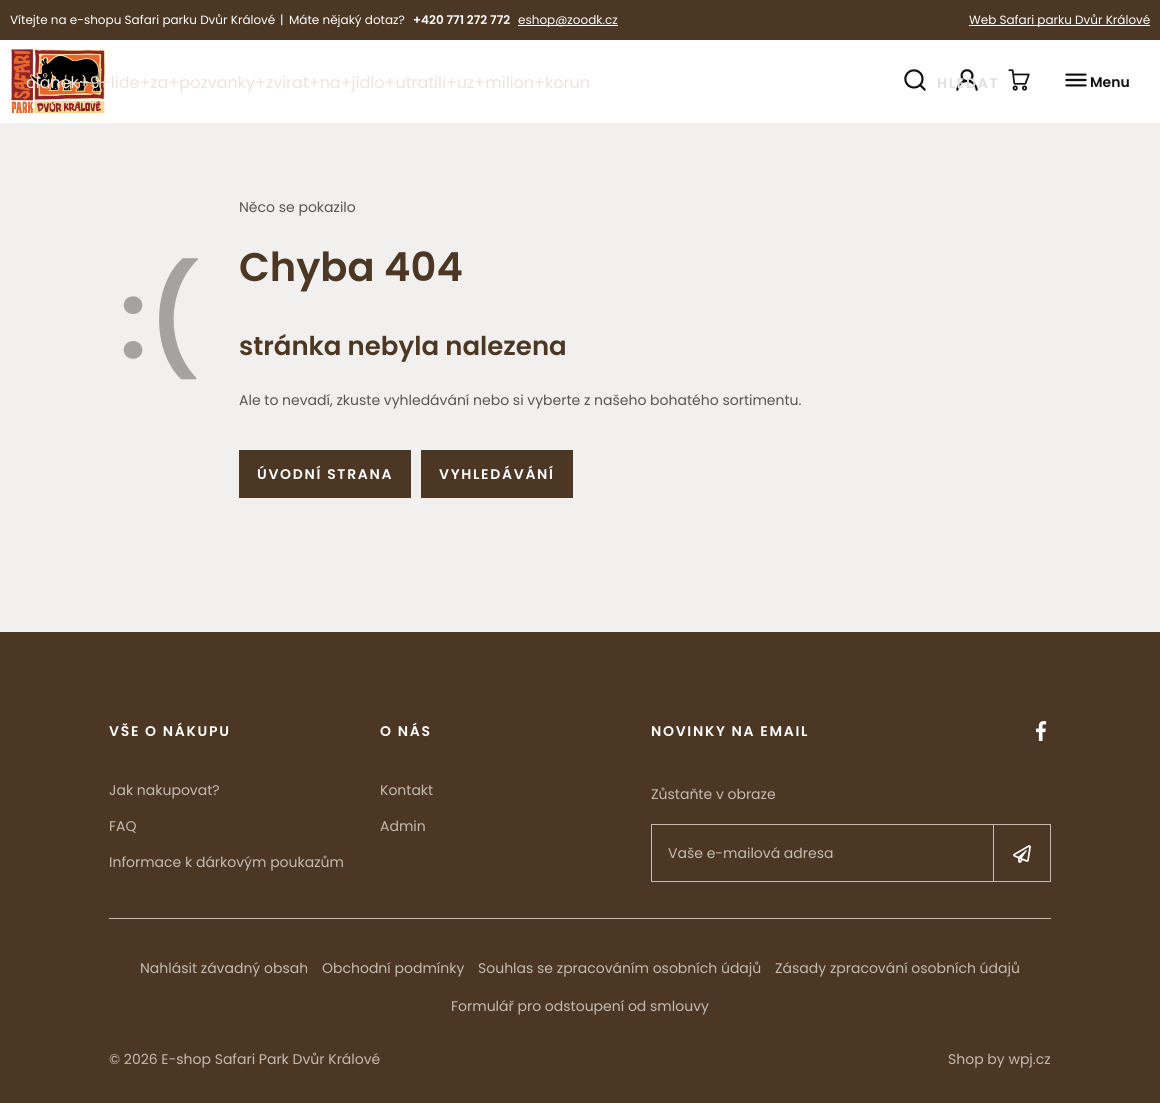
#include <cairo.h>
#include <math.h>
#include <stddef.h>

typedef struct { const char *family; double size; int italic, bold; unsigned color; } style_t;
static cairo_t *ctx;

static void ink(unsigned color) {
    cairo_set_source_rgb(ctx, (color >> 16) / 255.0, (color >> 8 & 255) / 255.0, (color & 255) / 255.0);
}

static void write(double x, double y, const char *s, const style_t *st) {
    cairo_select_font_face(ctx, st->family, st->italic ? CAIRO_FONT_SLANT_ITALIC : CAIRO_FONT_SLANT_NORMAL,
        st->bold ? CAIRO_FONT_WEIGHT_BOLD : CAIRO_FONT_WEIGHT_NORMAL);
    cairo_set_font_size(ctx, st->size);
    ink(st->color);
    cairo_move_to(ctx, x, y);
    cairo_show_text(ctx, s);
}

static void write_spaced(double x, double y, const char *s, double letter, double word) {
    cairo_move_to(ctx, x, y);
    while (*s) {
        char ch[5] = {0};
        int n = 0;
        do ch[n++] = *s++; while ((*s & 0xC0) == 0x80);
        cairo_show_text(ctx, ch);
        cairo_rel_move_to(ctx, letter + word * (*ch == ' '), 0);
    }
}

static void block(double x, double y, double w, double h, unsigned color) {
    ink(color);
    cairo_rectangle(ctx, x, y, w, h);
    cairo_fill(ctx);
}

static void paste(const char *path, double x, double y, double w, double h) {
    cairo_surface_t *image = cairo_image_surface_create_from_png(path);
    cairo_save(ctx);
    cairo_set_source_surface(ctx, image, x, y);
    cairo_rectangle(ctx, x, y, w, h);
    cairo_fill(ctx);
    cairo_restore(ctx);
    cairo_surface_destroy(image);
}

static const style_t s1 = {"Poppins", 12, 0, 0, 0xffffff};
static const style_t s2 = {"Poppins SemiBold", 12, 0, 0, 0xffffff};
static const style_t s3 = {"Poppins", 16, 0, 0, 0xeae4e1};
static const style_t s4 = {"Poppins SemiBold", 14, 0, 0, 0x0f0f0f};
static const style_t s5 = {"Poppins SemiBold", 108, 0, 0, 0xa4a3a2};
static const style_t s6 = {"Poppins", 14, 0, 0, 0x555555};
static const style_t s7 = {"Poppins SemiBold", 40, 0, 0, 0x4b3724};
static const style_t s8 = {"Poppins SemiBold", 26, 0, 0, 0x4b3724};
static const style_t s9 = {"Poppins", 14, 0, 0, 0xc5bbb1};

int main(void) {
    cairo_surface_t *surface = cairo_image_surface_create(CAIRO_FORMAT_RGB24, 1160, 1103);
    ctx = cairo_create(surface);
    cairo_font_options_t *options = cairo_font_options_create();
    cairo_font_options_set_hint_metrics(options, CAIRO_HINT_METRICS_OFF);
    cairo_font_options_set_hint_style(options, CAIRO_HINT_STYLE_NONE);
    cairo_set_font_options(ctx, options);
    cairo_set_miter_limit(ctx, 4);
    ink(0xf2f0ee);
    cairo_paint(ctx);
    block(0, 0, 1160, 40, 0x4b3724);
    write(10, 24, "Vítejte na e-shopu Safari parku Dvůr Králové", &s1);
    write(280, 24, "|", &s1);
    write(289, 24, "Máte nějaký dotaz?", &s1);
    write(413, 24, "+420 771 272 772", &s2);
    block(518, 25, 100, 1, 0xffffff);
    write(518, 24, "eshop@zoodk.cz", &s1);
    block(969, 25, 181, 1, 0xffffff);
    write(969, 24, "Web Safari parku Dvůr Králové", &s1);
    block(0, 40, 1160, 83, 0xffffff);
    paste("pic1.png", 11, 49, 95, 65);
    write(26, 88, "clanek+9+lide+za+pozvanky+zvirat+na+jidlo+utratili+uz+milion+korun", &s3);
    paste("pic3.png", 956, 69, 22, 22);
    cairo_select_font_face(ctx, "Poppins SemiBold", CAIRO_FONT_SLANT_NORMAL, CAIRO_FONT_WEIGHT_NORMAL);
    cairo_set_font_size(ctx, 14);
    ink(0xe0e0e0);
    write_spaced(937, 88, "HLEDAT", 1.7, 0);
    paste("pic2.png", 904, 69, 22, 22);
    paste("pic4.png", 1008, 69, 22, 22);
    paste("pic5.png", 1065, 73, 22, 14);
    write(1090, 87, "Menu", &s4);
    write(119, 358, ":(", &s5);
    write(239, 212, "Něco se pokazilo", &s6);
    write(239, 281, "Chyba 404", &s7);
    write(239, 355, "stránka nebyla nalezena", &s8);
    write(239, 405, "Ale to nevadí, zkuste vyhledávání nebo si vyberte z našeho bohatého sortimentu.", &s6);
    block(239, 450, 172, 48, 0x4b3724);
    cairo_select_font_face(ctx, "Poppins SemiBold", CAIRO_FONT_SLANT_NORMAL, CAIRO_FONT_WEIGHT_NORMAL);
    ink(0xffffff);
    write_spaced(257, 479, "ÚVODNÍ STRANA", 1.7, 0);
    block(421, 450, 152, 48, 0x4b3724);
    ink(0xffffff);
    write_spaced(439, 479, "VYHLEDÁVÁNÍ", 1.7, 0);
    block(0, 632, 1160, 471, 0x4b3724);
    ink(0xffffff);
    write_spaced(109, 736, "VŠE O NÁKUPU", 1.7, 0);
    write(109, 795, "Jak nakupovat?", &s9);
    write(109, 831, "FAQ", &s9);
    write(109, 867, "Informace k dárkovým poukazům", &s9);
    cairo_select_font_face(ctx, "Poppins SemiBold", CAIRO_FONT_SLANT_NORMAL, CAIRO_FONT_WEIGHT_NORMAL);
    ink(0xffffff);
    write_spaced(380, 736, "O NÁS", 1.7, 0);
    write(380, 795, "Kontakt", &s9);
    write(380, 831, "Admin", &s9);
    cairo_select_font_face(ctx, "Poppins SemiBold", CAIRO_FONT_SLANT_NORMAL, CAIRO_FONT_WEIGHT_NORMAL);
    ink(0xffffff);
    write_spaced(651, 736, "NOVINKY NA EMAIL", 1.7, 0);
    paste("pic6.png", 1035, 721, 12, 20);
    write(651, 799, "Zůstaňte v obraze", &s9);
    block(651, 824, 343, 1, 0xc5bbb2);
    block(651, 881, 343, 1, 0xc5bbb2);
    block(651, 824, 1, 58, 0xc5bbb2);
    write(668, 858, "Vaše e-mailová adresa", &s9);
    cairo_rectangle(ctx, 993.5, 824.5, 57, 57);
    ink(0xc5bbb2);
    cairo_set_line_width(ctx, 1);
    cairo_stroke(ctx);
    paste("pic7.png", 1013, 845, 18, 18);
    block(109, 918, 942, 1, 0xc5bbb1);
    write(140, 973, "Nahlásit závadný obsah", &s9);
    write(322, 973, "Obchodní podmínky", &s9);
    write(478, 973, "Souhlas se zpracováním osobních údajů", &s9);
    write(775, 973, "Zásady zpracování osobních údajů", &s9);
    write(451, 1011, "Formulář pro odstoupení od smlouvy", &s9);
    write(109, 1064, "© 2026 E-shop Safari Park Dvůr Králové", &s9);
    write(948, 1064, "Shop by wpj.cz", &s9);
    cairo_surface_write_to_png(surface, "screenshot.png");
    cairo_font_options_destroy(options);
    cairo_destroy(ctx);
    cairo_surface_destroy(surface);
    return 0;
}
